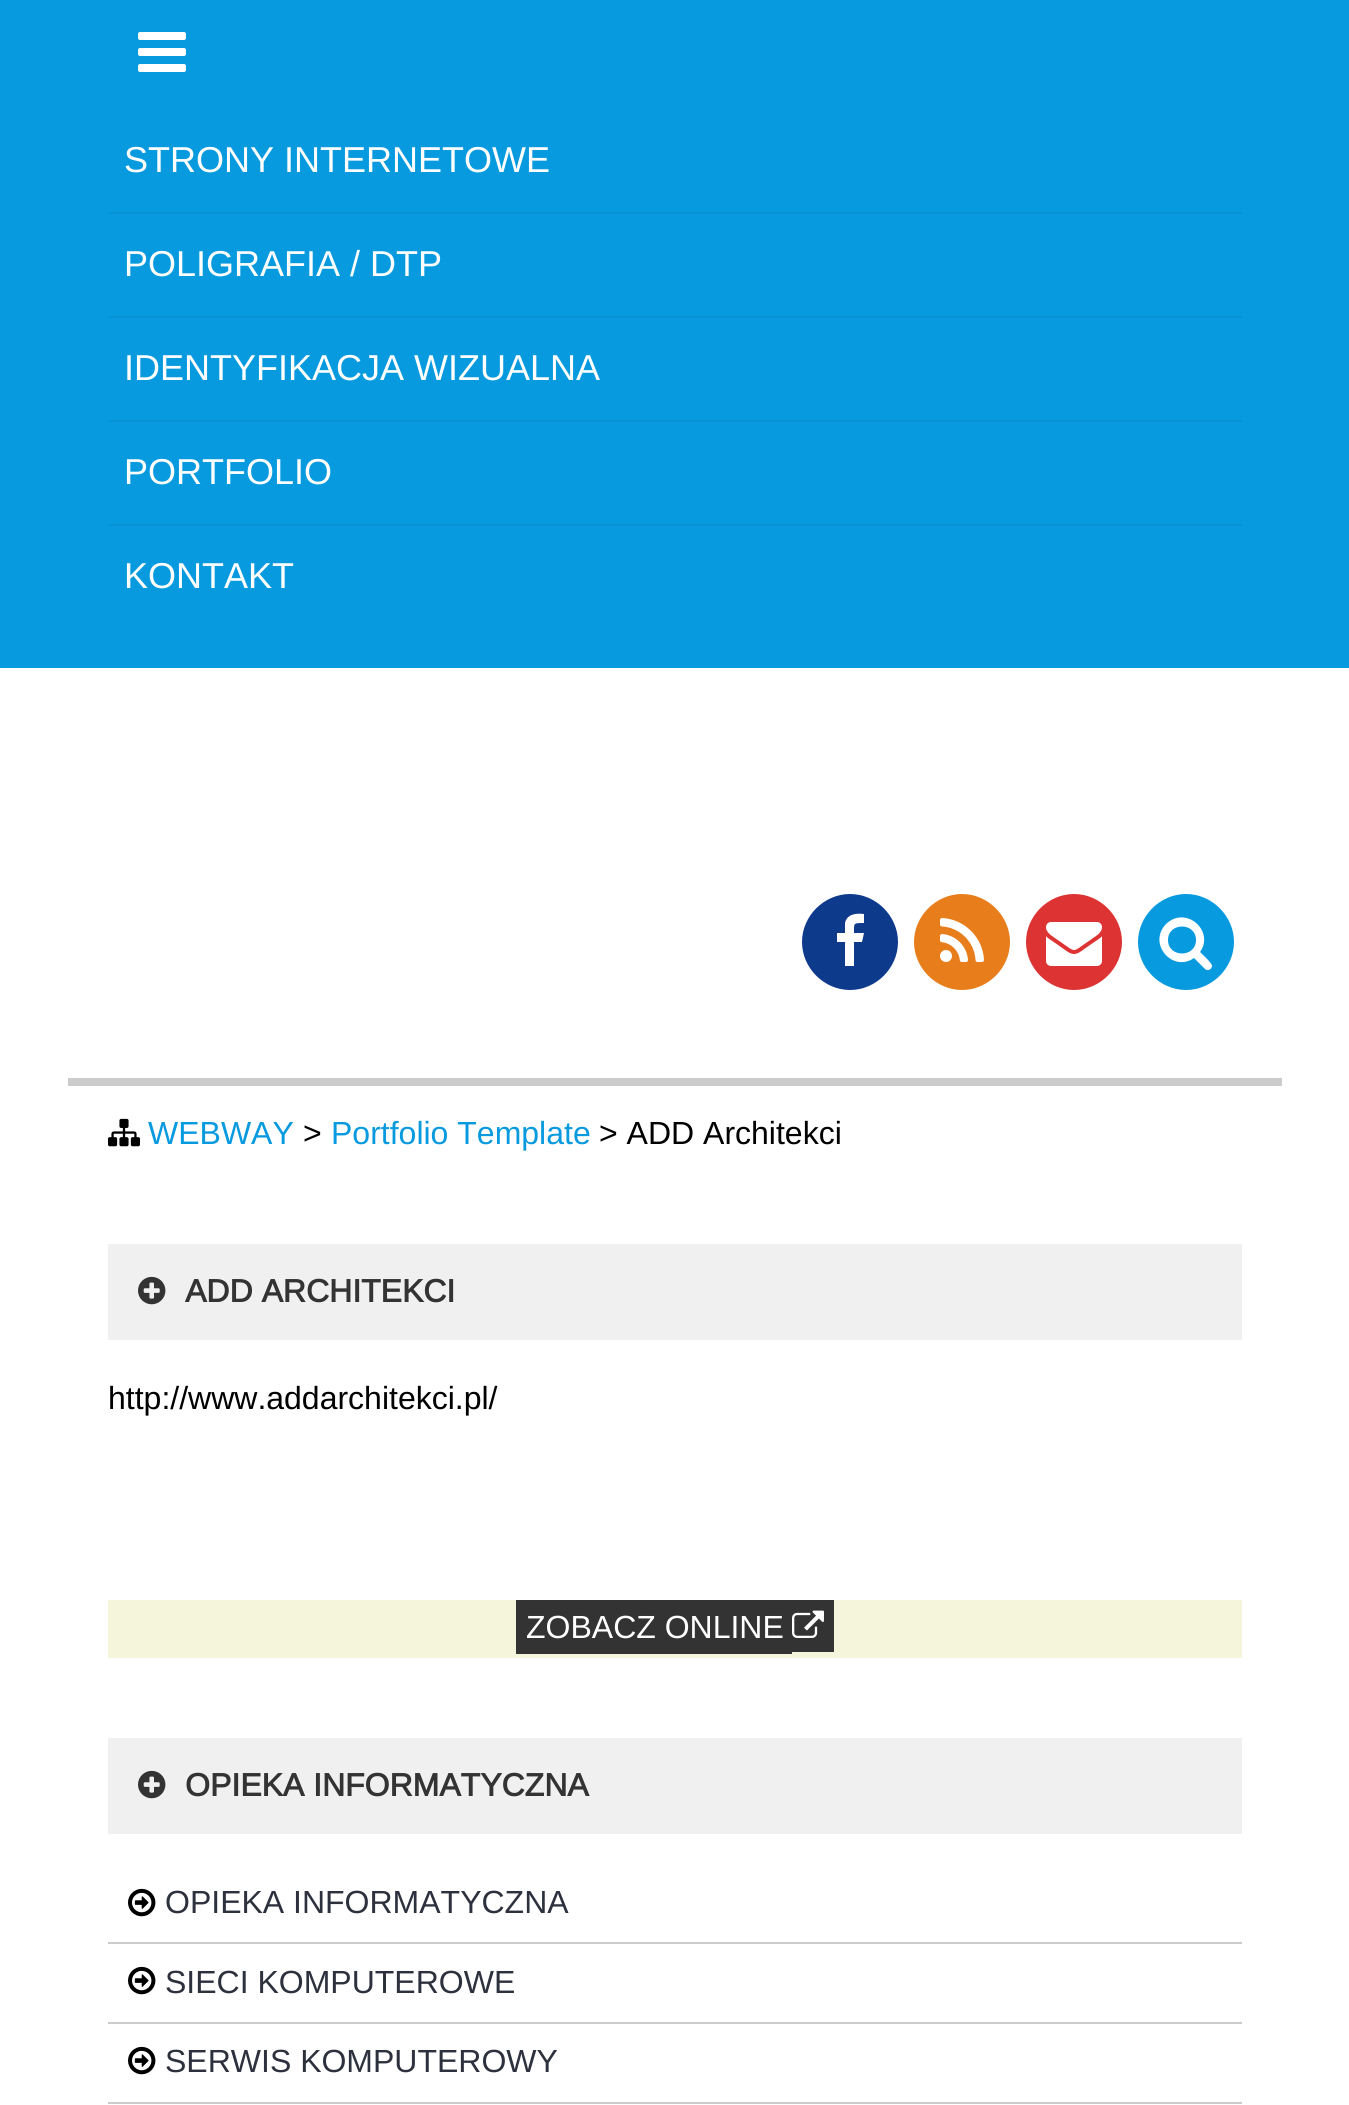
#include <cairo.h>
#include <math.h>
#include <stddef.h>

typedef struct { const char *family; double size; int italic, bold; unsigned color; } style_t;
static cairo_t *ctx;

static void ink(unsigned color) {
    cairo_set_source_rgb(ctx, (color >> 16) / 255.0, (color >> 8 & 255) / 255.0, (color & 255) / 255.0);
}

static void write(double x, double y, const char *s, const style_t *st) {
    cairo_select_font_face(ctx, st->family, st->italic ? CAIRO_FONT_SLANT_ITALIC : CAIRO_FONT_SLANT_NORMAL,
        st->bold ? CAIRO_FONT_WEIGHT_BOLD : CAIRO_FONT_WEIGHT_NORMAL);
    cairo_set_font_size(ctx, st->size);
    ink(st->color);
    cairo_move_to(ctx, x, y);
    cairo_show_text(ctx, s);
}

static void block(double x, double y, double w, double h, unsigned color) {
    ink(color);
    cairo_rectangle(ctx, x, y, w, h);
    cairo_fill(ctx);
}

static void paste(const char *path, double x, double y, double w, double h) {
    cairo_surface_t *image = cairo_image_surface_create_from_png(path);
    cairo_save(ctx);
    cairo_set_source_surface(ctx, image, x, y);
    cairo_rectangle(ctx, x, y, w, h);
    cairo_fill(ctx);
    cairo_restore(ctx);
    cairo_surface_destroy(image);
}

static const style_t s1 = {"Arimo", 36, 0, 0, 0xffffff};
static const style_t s2 = {"Arimo", 32, 0, 0, 0x079adf};
static const style_t s3 = {"Arimo", 32, 0, 0, 0x000000};
static const style_t s4 = {"Arimo", 32, 0, 1, 0x333333};
static const style_t s5 = {"Arimo", 32, 0, 0, 0xffffff};
static const style_t s6 = {"Arimo", 32, 0, 0, 0x2d313d};

int main(void) {
    cairo_surface_t *surface = cairo_image_surface_create(CAIRO_FORMAT_RGB24, 1349, 2105);
    ctx = cairo_create(surface);
    cairo_font_options_t *options = cairo_font_options_create();
    cairo_font_options_set_hint_metrics(options, CAIRO_HINT_METRICS_OFF);
    cairo_font_options_set_hint_style(options, CAIRO_HINT_STYLE_NONE);
    cairo_set_font_options(ctx, options);
    cairo_set_miter_limit(ctx, 4);
    ink(0xffffff);
    cairo_paint(ctx);
    block(0, 0, 1349, 668, 0x079adf);
    paste("pic1.png", 138, 32, 48, 40);
    write(124, 172, "STRONY INTERNETOWE", &s1);
    block(108, 212, 1134, 2, 0x0792d4);
    write(124, 276, "POLIGRAFIA / DTP", &s1);
    block(108, 316, 1134, 2, 0x0792d4);
    write(124, 380, "IDENTYFIKACJA WIZUALNA", &s1);
    block(108, 420, 1134, 2, 0x0792d4);
    write(124, 484, "PORTFOLIO", &s1);
    block(108, 524, 1134, 2, 0x0792d4);
    write(124, 588, "KONTAKT", &s1);
    block(68, 1078, 1214, 8, 0xcccccc);
    ink(0x0e3a8c);
    cairo_new_path(ctx);
    cairo_move_to(ctx, 898, 942);
    cairo_curve_to(ctx, 898, 916, 876, 894, 850, 894);
    cairo_curve_to(ctx, 824, 894, 802, 916, 802, 942);
    cairo_curve_to(ctx, 802, 968, 824, 990, 850, 990);
    cairo_curve_to(ctx, 876, 990, 898, 968, 898, 942);
    cairo_close_path(ctx);
    cairo_fill(ctx);
    ink(0xffffff);
    cairo_new_path(ctx);
    cairo_move_to(ctx, 864, 914);
    cairo_curve_to(ctx, 856, 913, 847, 914, 845, 923);
    cairo_line_to(ctx, 845, 933);
    cairo_line_to(ctx, 837, 933);
    cairo_line_to(ctx, 837, 942);
    cairo_line_to(ctx, 845, 942);
    cairo_line_to(ctx, 845, 966);
    cairo_line_to(ctx, 854, 966);
    cairo_line_to(ctx, 854, 942);
    cairo_line_to(ctx, 862, 942);
    cairo_line_to(ctx, 864, 933);
    cairo_line_to(ctx, 854, 933);
    cairo_curve_to(ctx, 854, 923, 853, 923, 864, 923);
    cairo_close_path(ctx);
    cairo_fill(ctx);
    ink(0xe87e1b);
    cairo_new_path(ctx);
    cairo_move_to(ctx, 1010, 942);
    cairo_curve_to(ctx, 1010, 916, 988, 894, 962, 894);
    cairo_curve_to(ctx, 936, 894, 914, 916, 914, 942);
    cairo_curve_to(ctx, 914, 968, 936, 990, 962, 990);
    cairo_curve_to(ctx, 988, 990, 1010, 968, 1010, 942);
    cairo_close_path(ctx);
    cairo_fill(ctx);
    paste("pic2.png", 940, 918, 44, 44);
    ink(0xdd3333);
    cairo_new_path(ctx);
    cairo_move_to(ctx, 1122, 942);
    cairo_curve_to(ctx, 1122, 916, 1100, 894, 1074, 894);
    cairo_curve_to(ctx, 1048, 894, 1026, 916, 1026, 942);
    cairo_curve_to(ctx, 1026, 968, 1048, 990, 1074, 990);
    cairo_curve_to(ctx, 1100, 990, 1122, 968, 1122, 942);
    cairo_close_path(ctx);
    cairo_fill(ctx);
    paste("pic3.png", 1046, 922, 56, 44);
    ink(0x079adf);
    cairo_new_path(ctx);
    cairo_move_to(ctx, 1234, 942);
    cairo_curve_to(ctx, 1234, 916, 1212, 894, 1186, 894);
    cairo_curve_to(ctx, 1160, 894, 1138, 916, 1138, 942);
    cairo_curve_to(ctx, 1138, 968, 1160, 990, 1186, 990);
    cairo_curve_to(ctx, 1212, 990, 1234, 968, 1234, 942);
    cairo_close_path(ctx);
    cairo_fill(ctx);
    ink(0xffffff);
    cairo_new_path(ctx);
    cairo_move_to(ctx, 1196, 940);
    cairo_curve_to(ctx, 1196, 958, 1168, 958, 1168, 940);
    cairo_curve_to(ctx, 1168, 922, 1196, 922, 1196, 940);
    cairo_close_path(ctx);
    cairo_move_to(ctx, 1212, 966);
    cairo_curve_to(ctx, 1212, 963, 1203, 955, 1200, 952);
    cairo_curve_to(ctx, 1215, 931, 1186, 905, 1166, 924);
    cairo_curve_to(ctx, 1147, 944, 1173, 973, 1194, 958);
    cairo_line_to(ctx, 1205, 969);
    cairo_curve_to(ctx, 1206, 970, 1207, 970, 1208, 970);
    cairo_curve_to(ctx, 1210, 970, 1212, 968, 1212, 966);
    cairo_close_path(ctx);
    cairo_fill(ctx);
    paste("pic4.png", 108, 1118, 32, 29);
    write(148, 1144, "WEBWAY", &s2);
    write(303, 1144, ">", &s3);
    write(331, 1144, "Portfolio Template", &s2);
    write(599, 1144, "> ADD Architekci", &s3);
    block(108, 1244, 1134, 96, 0xf0f0f0);
    paste("pic5.png", 138, 1276, 28, 29);
    write(185, 1302, "ADD ARCHITEKCI", &s4);
    write(108, 1409, "http://www.addarchitekci.pl/", &s3);
    block(108, 1600, 1134, 58, 0xf5f5dc);
    block(516, 1600, 276, 54, 0x333333);
    block(792, 1600, 42, 52, 0x333333);
    write(526, 1638, "ZOBACZ ONLINE", &s5);
    paste("pic6.png", 792, 1610, 32, 28);
    block(108, 1738, 1134, 96, 0xf0f0f0);
    paste("pic5.png", 138, 1770, 28, 29);
    write(185, 1796, "OPIEKA INFORMATYCZNA", &s4);
    block(108, 1942, 1134, 2, 0xcccccc);
    paste("pic7.png", 128, 1888, 28, 29);
    write(165, 1913, "OPIEKA INFORMATYCZNA", &s6);
    block(108, 2022, 1134, 2, 0xcccccc);
    paste("pic7.png", 128, 1966, 28, 29);
    write(165, 1993, "SIECI KOMPUTEROWE", &s6);
    block(108, 2102, 1134, 2, 0xcccccc);
    paste("pic7.png", 128, 2046, 28, 29);
    write(165, 2072, "SERWIS KOMPUTEROWY", &s6);
    cairo_surface_write_to_png(surface, "screenshot.png");
    cairo_font_options_destroy(options);
    cairo_destroy(ctx);
    cairo_surface_destroy(surface);
    return 0;
}
